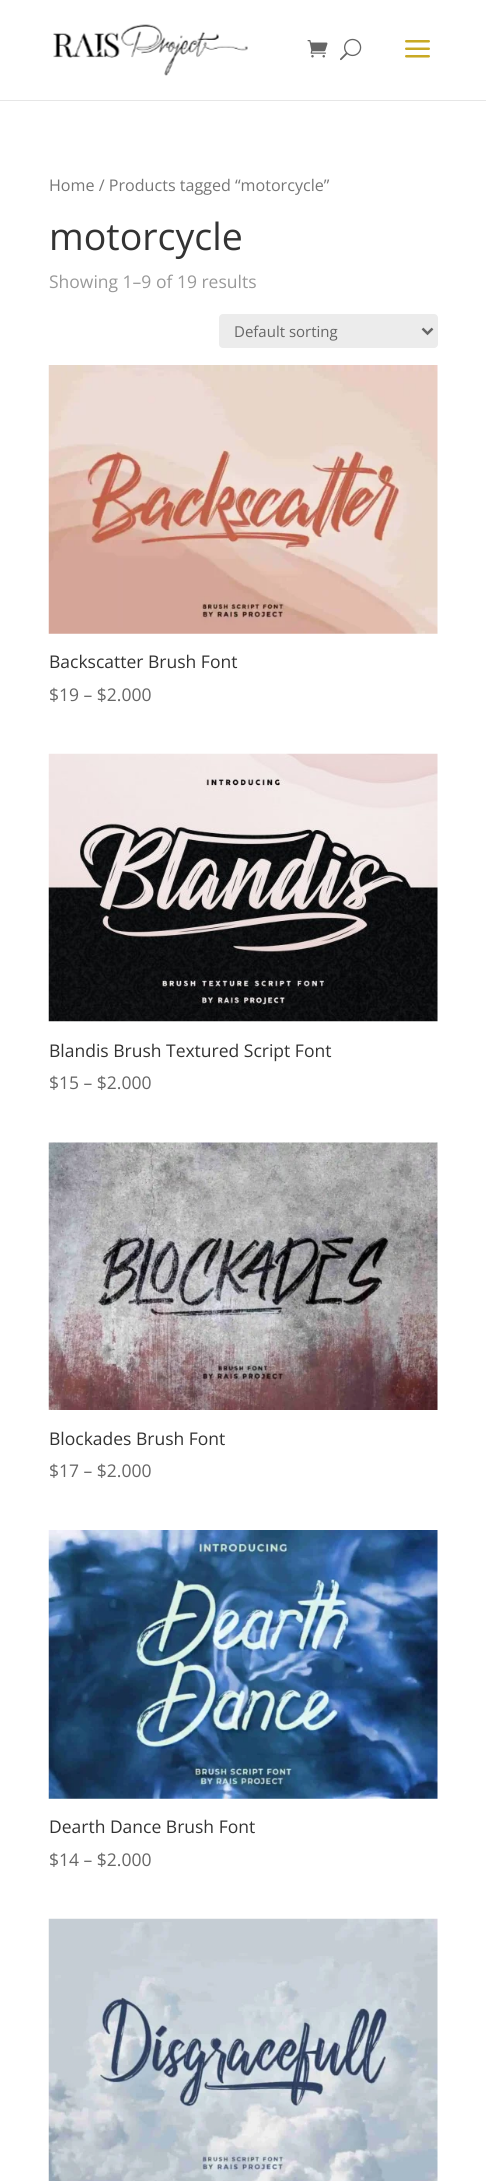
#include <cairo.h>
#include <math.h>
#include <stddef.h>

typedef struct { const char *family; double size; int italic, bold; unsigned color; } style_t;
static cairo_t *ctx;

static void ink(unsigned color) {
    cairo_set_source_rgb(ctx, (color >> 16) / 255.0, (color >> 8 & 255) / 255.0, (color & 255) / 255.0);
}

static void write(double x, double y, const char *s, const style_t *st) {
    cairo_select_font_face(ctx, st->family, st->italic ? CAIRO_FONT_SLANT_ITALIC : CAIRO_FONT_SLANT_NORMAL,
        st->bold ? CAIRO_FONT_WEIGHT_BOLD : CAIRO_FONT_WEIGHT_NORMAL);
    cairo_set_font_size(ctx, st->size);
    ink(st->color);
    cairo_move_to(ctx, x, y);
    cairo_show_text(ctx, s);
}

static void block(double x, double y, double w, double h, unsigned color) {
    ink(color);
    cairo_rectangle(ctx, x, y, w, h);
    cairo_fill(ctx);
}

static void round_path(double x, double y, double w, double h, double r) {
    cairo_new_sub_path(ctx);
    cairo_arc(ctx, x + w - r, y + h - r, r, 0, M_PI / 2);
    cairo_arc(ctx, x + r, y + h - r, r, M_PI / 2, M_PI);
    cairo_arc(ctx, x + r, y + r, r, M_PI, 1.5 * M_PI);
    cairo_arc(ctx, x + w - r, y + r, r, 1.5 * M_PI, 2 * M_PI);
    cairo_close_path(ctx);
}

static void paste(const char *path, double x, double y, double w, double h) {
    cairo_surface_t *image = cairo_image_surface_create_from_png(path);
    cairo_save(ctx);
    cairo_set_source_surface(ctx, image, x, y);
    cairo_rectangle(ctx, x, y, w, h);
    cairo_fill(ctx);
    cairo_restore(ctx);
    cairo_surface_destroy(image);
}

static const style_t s1 = {"Open Sans", 16.1, 0, 0, 0x767676};
static const style_t s2 = {"Open Sans", 37.5, 0, 0, 0x333333};
static const style_t s3 = {"Open Sans", 17.5, 0, 0, 0x999999};
static const style_t s4 = {"Open Sans", 15, 0, 0, 0x666666};
static const style_t s5 = {"Open Sans", 17.5, 0, 0, 0x333333};
static const style_t s6 = {"Open Sans", 17.5, 0, 0, 0x666666};

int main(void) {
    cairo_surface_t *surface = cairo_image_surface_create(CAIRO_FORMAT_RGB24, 486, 2181);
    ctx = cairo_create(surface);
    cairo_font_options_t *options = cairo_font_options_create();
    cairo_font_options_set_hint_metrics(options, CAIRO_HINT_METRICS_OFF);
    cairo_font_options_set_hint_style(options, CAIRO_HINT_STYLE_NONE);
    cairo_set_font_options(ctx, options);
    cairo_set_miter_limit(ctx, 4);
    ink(0xffffff);
    cairo_paint(ctx);
    block(0, 100, 486, 1, 0xe6e6e6);
    paste("pic1.png", 53, 24, 195, 52);
    paste("pic2.png", 307, 40, 21, 18);
    paste("pic3.png", 340, 38, 22, 23);
    paste("pic4.png", 405, 40, 25, 18);
    write(49, 191, "Home / Products tagged “motorcycle”", &s1);
    write(49, 250, "motorcycle", &s2);
    write(49, 288, "Showing 1–9 of 19 results", &s3);
    ink(0xececec);
    round_path(219, 314, 219, 34, 4);
    cairo_fill(ctx);
    cairo_new_path(ctx);
    cairo_move_to(ctx, 422.5, 328.5);
    cairo_line_to(ctx, 427.5, 333.5);
    cairo_line_to(ctx, 432.5, 328.5);
    ink(0x666666);
    cairo_set_line_width(ctx, 2.5);
    cairo_stroke(ctx);
    write(234, 337, "Default sorting", &s4);
    paste("pic5.png", 48, 365, 390, 269);
    write(49, 668, "Backscatter Brush Font", &s5);
    write(49, 701, "$19 – $2.000", &s6);
    paste("pic6.png", 48, 753, 390, 269);
    write(49, 1057, "Blandis Brush Textured Script Font", &s5);
    write(49, 1089, "$15 – $2.000", &s6);
    paste("pic7.png", 48, 1142, 390, 268);
    write(49, 1445, "Blockades Brush Font", &s5);
    write(49, 1477, "$17 – $2.000", &s6);
    paste("pic8.png", 48, 1530, 390, 269);
    write(49, 1833, "Dearth Dance Brush Font", &s5);
    write(49, 1866, "$14 – $2.000", &s6);
    paste("pic9.png", 48, 1918, 390, 263);
    cairo_surface_write_to_png(surface, "screenshot.png");
    cairo_font_options_destroy(options);
    cairo_destroy(ctx);
    cairo_surface_destroy(surface);
    return 0;
}
